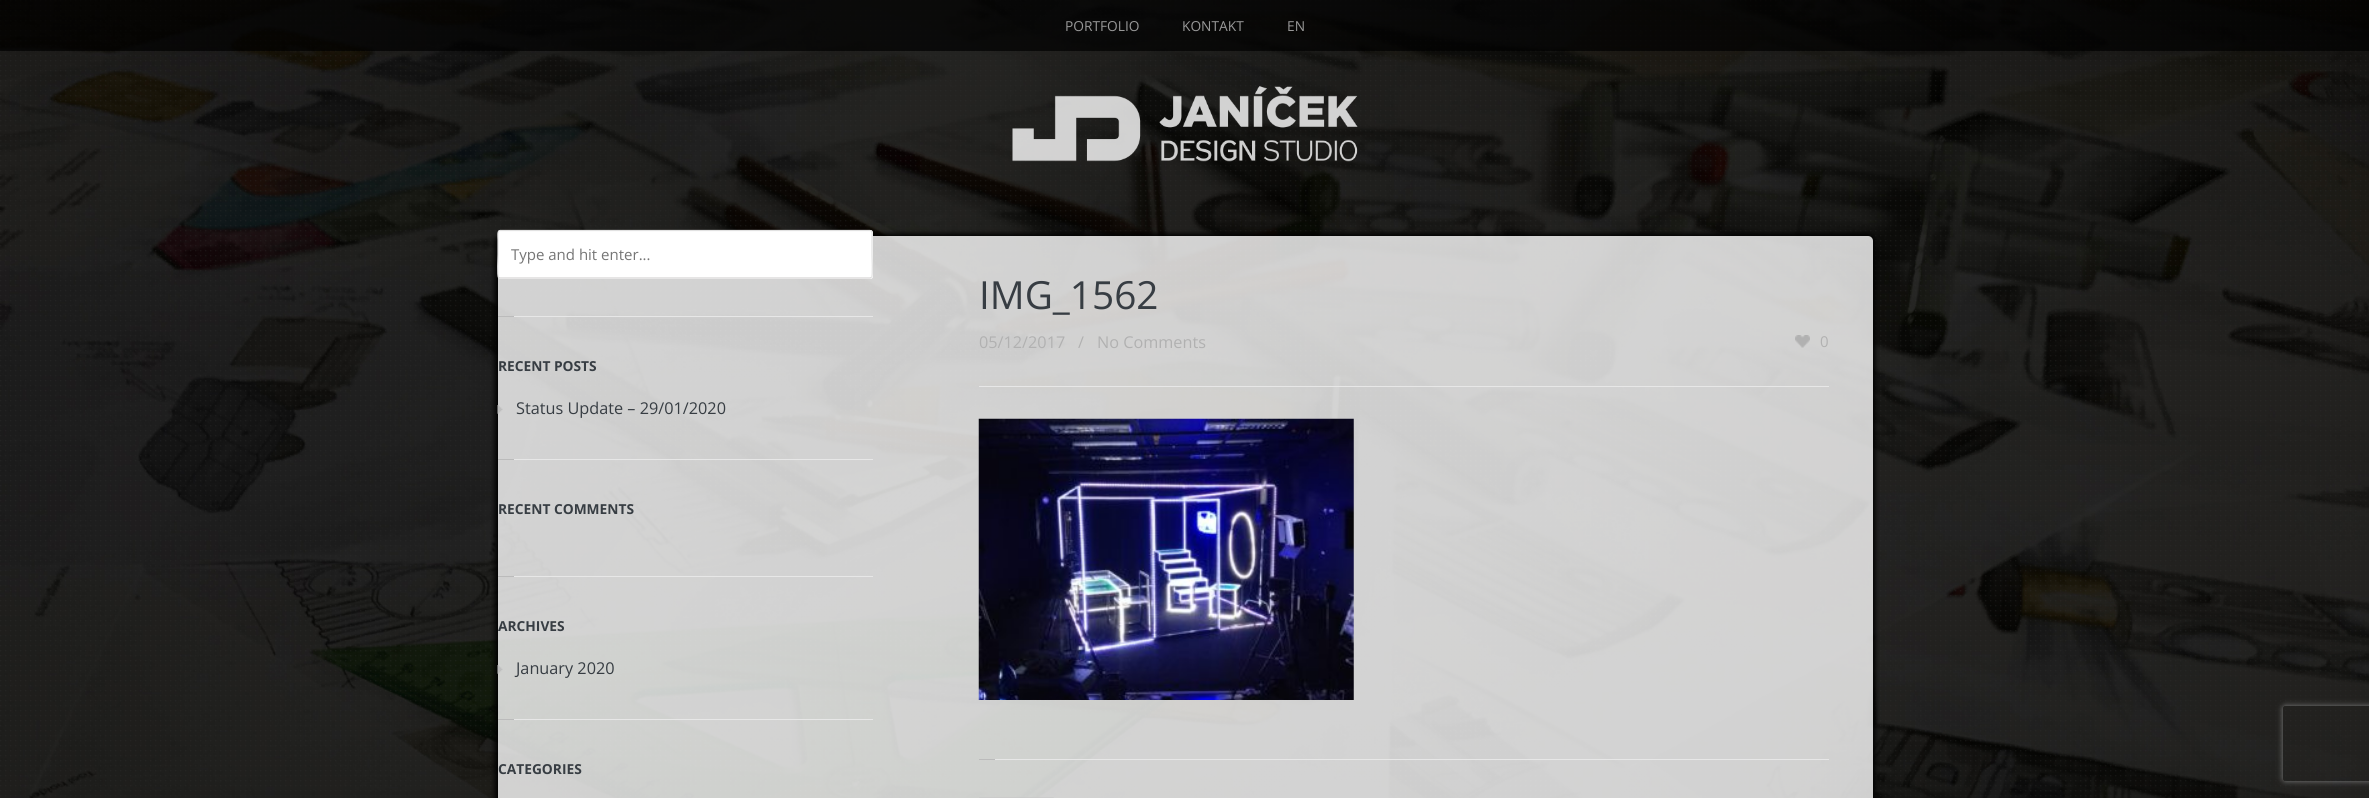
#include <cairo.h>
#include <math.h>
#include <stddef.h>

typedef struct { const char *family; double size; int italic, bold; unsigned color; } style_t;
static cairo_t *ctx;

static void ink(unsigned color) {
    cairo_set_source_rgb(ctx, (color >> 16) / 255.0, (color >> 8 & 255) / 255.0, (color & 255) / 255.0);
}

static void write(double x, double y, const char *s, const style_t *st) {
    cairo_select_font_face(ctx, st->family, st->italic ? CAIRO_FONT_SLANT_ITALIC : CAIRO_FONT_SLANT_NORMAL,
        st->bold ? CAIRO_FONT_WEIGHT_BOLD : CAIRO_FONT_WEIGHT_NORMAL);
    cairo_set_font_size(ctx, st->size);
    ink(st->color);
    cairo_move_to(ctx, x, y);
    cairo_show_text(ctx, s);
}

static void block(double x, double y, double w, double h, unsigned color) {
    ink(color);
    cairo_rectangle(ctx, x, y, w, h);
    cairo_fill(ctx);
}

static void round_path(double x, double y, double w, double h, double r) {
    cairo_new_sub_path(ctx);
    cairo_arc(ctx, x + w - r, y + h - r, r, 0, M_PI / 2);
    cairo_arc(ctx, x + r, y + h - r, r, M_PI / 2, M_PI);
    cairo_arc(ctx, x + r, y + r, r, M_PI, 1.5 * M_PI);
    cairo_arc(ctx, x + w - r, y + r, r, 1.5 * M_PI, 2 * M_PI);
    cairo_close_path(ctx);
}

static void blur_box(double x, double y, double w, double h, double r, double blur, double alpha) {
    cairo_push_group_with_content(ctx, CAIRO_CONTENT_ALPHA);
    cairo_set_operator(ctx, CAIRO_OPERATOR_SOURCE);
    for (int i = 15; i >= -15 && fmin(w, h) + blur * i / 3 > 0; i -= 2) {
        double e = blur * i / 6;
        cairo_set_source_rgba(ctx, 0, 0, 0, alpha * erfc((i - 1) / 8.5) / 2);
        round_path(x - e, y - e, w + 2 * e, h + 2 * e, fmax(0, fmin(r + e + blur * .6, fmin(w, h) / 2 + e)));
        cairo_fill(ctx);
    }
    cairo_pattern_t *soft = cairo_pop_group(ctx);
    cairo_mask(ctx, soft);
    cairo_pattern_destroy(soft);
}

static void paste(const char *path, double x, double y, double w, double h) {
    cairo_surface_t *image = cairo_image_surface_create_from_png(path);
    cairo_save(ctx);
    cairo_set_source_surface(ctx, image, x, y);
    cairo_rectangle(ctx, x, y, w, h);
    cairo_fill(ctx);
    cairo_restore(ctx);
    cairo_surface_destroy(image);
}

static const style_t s1 = {"Open Sans", 13.75, 0, 0, 0x989898};
static const style_t s2 = {"Open Sans", 15, 0, 0, 0x757575};
static const style_t s3 = {"Open Sans", 13.75, 0, 1, 0x373d43};
static const style_t s4 = {"Open Sans", 16.25, 0, 0, 0x373d43};
static const style_t s5 = {"Open Sans", 38.75, 0, 0, 0x373d43};
static const style_t s6 = {"Open Sans", 16.25, 0, 0, 0xb1b1b1};
static const style_t s7 = {"Open Sans", 15, 0, 0, 0xb1b1b1};

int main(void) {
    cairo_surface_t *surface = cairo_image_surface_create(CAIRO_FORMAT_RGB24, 2369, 798);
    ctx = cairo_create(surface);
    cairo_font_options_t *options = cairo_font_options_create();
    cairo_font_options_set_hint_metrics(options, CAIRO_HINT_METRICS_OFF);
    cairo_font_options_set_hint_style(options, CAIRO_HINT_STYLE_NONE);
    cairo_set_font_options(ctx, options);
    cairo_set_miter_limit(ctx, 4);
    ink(0xffffff);
    cairo_paint(ctx);
    paste("pic1.png", 0, 0, 2369, 798);
    cairo_set_source_rgba(ctx, 0, 0, 0, 0.7);
    cairo_rectangle(ctx, 0, 0, 2369, 51);
    cairo_fill(ctx);
    write(1065, 31, "PORTFOLIO", &s1);
    write(1182, 31, "KONTAKT", &s1);
    write(1287, 31, "EN", &s1);
    paste("pic2.png", 1012, 86, 346, 76);
    cairo_save(ctx);
    cairo_set_fill_rule(ctx, CAIRO_FILL_RULE_EVEN_ODD);
    cairo_new_path(ctx);
    cairo_move_to(ctx, 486, 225);
    cairo_line_to(ctx, 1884, 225);
    cairo_line_to(ctx, 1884, 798);
    cairo_line_to(ctx, 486, 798);
    cairo_close_path(ctx);
    cairo_move_to(ctx, 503, 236);
    cairo_line_to(ctx, 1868, 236);
    cairo_curve_to(ctx, 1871, 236, 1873, 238, 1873, 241);
    cairo_line_to(ctx, 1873, 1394);
    cairo_curve_to(ctx, 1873, 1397, 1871, 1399, 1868, 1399);
    cairo_line_to(ctx, 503, 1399);
    cairo_curve_to(ctx, 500, 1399, 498, 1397, 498, 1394);
    cairo_line_to(ctx, 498, 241);
    cairo_curve_to(ctx, 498, 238, 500, 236, 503, 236);
    cairo_close_path(ctx);
    cairo_clip(ctx);
    ink(0x000000);
    blur_box(495, 234, 1380, 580, 8, 2.5, 1);
    cairo_restore(ctx);
    cairo_set_source_rgba(ctx, 1, 1, 1, 0.8);
    round_path(498, 236, 1375, 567, 5);
    cairo_fill(ctx);
    block(514, 316, 359, 1, 0xe7e7e7);
    ink(0xffffff);
    round_path(498, 230, 375, 49, 2.5);
    cairo_fill(ctx);
    cairo_new_path(ctx);
    cairo_move_to(ctx, 871.5, 277.5);
    cairo_line_to(ctx, 870, 278);
    cairo_line_to(ctx, 500, 278);
    cairo_line_to(ctx, 498.5, 277.5);
    ink(0xd6d4d4);
    cairo_set_line_width(ctx, 1.2);
    cairo_stroke(ctx);
    cairo_new_path(ctx);
    cairo_move_to(ctx, 498.5, 277.5);
    cairo_curve_to(ctx, 497, 276, 498, 257.5, 498, 254.5);
    cairo_line_to(ctx, 498, 240);
    cairo_curve_to(ctx, 498, 236.5, 497, 230.5, 500, 230.5);
    cairo_line_to(ctx, 870, 230.5);
    cairo_curve_to(ctx, 873, 230.5, 872, 236.5, 872, 240);
    cairo_line_to(ctx, 872, 254.5);
    cairo_curve_to(ctx, 872, 257.5, 873, 276, 871.5, 277.5);
    ink(0xe1e1e1);
    cairo_stroke(ctx);
    write(511, 260, "Type and hit enter...", &s2);
    block(498, 316, 16, 1, 0xbbbbbb);
    block(514, 459, 359, 1, 0xe7e7e7);
    write(498, 371, "RECENT POSTS", &s3);
    paste("pic3.png", 497, 405, 6, 9);
    write(516, 414, "Status Update – 29/01/2020", &s4);
    block(498, 459, 16, 1, 0xbbbbbb);
    block(514, 576, 359, 1, 0xe7e7e7);
    write(498, 514, "RECENT COMMENTS", &s3);
    block(498, 576, 16, 1, 0xbbbbbb);
    block(514, 719, 359, 1, 0xe7e7e7);
    write(498, 631, "ARCHIVES", &s3);
    paste("pic4.png", 497, 665, 6, 9);
    write(516, 674, "January 2020", &s4);
    block(498, 719, 16, 1, 0xbbbbbb);
    write(498, 774, "CATEGORIES", &s3);
    write(979, 309, "IMG_1562", &s5);
    block(979, 386, 850, 1, 0xe7e7e7);
    write(979, 348, "05/12/2017", &s6);
    write(1078, 348, "/", &s6);
    write(1097, 348, "No Comments", &s6);
    paste("pic5.png", 1795, 335, 15, 13);
    write(1820, 347, "0", &s7);
    paste("pic6.png", 978, 418, 376, 282);
    block(995, 759, 834, 1, 0xe7e7e7);
    block(979, 759, 16, 1, 0xbbbbbb);
    paste("pic7.png", 979, 797, 75, 1);
    cairo_save(ctx);
    cairo_set_fill_rule(ctx, CAIRO_FILL_RULE_EVEN_ODD);
    cairo_new_path(ctx);
    cairo_move_to(ctx, 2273, 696);
    cairo_line_to(ctx, 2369, 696);
    cairo_line_to(ctx, 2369, 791);
    cairo_line_to(ctx, 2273, 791);
    cairo_close_path(ctx);
    cairo_move_to(ctx, 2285.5, 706);
    cairo_line_to(ctx, 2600.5, 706);
    cairo_curve_to(ctx, 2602, 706, 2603, 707, 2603, 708.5);
    cairo_line_to(ctx, 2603, 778.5);
    cairo_curve_to(ctx, 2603, 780, 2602, 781, 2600.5, 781);
    cairo_line_to(ctx, 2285.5, 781);
    cairo_curve_to(ctx, 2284, 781, 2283, 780, 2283, 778.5);
    cairo_line_to(ctx, 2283, 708.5);
    cairo_curve_to(ctx, 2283, 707, 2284, 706, 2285.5, 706);
    cairo_close_path(ctx);
    cairo_clip(ctx);
    ink(0x808080);
    blur_box(2283, 706, 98, 75, 2.5, 3, 1);
    cairo_restore(ctx);
    cairo_surface_write_to_png(surface, "screenshot.png");
    cairo_font_options_destroy(options);
    cairo_destroy(ctx);
    cairo_surface_destroy(surface);
    return 0;
}
